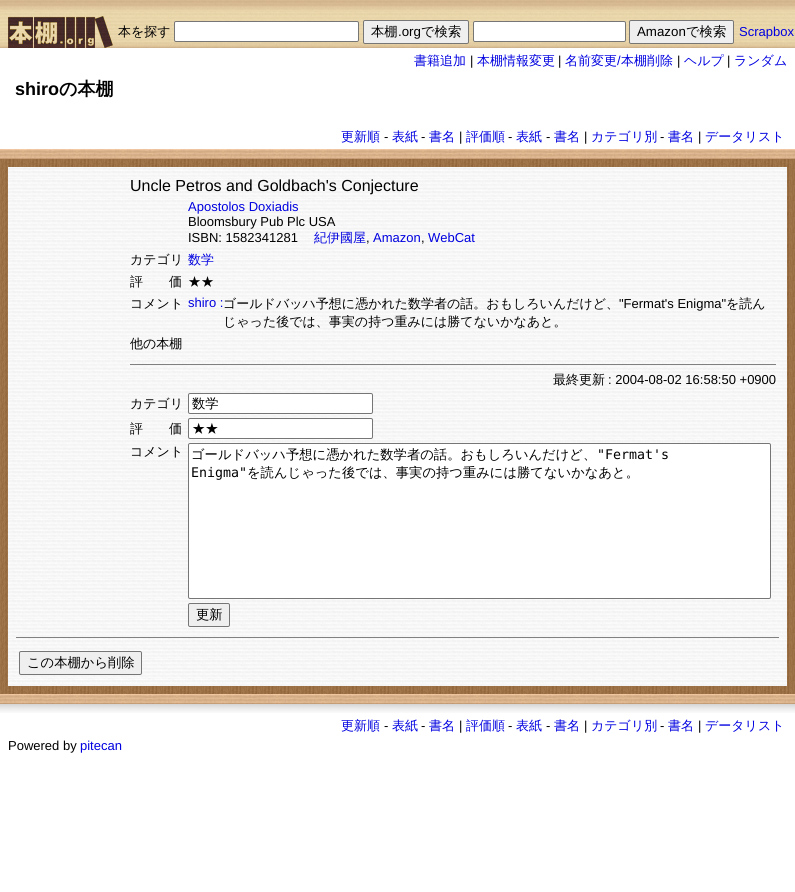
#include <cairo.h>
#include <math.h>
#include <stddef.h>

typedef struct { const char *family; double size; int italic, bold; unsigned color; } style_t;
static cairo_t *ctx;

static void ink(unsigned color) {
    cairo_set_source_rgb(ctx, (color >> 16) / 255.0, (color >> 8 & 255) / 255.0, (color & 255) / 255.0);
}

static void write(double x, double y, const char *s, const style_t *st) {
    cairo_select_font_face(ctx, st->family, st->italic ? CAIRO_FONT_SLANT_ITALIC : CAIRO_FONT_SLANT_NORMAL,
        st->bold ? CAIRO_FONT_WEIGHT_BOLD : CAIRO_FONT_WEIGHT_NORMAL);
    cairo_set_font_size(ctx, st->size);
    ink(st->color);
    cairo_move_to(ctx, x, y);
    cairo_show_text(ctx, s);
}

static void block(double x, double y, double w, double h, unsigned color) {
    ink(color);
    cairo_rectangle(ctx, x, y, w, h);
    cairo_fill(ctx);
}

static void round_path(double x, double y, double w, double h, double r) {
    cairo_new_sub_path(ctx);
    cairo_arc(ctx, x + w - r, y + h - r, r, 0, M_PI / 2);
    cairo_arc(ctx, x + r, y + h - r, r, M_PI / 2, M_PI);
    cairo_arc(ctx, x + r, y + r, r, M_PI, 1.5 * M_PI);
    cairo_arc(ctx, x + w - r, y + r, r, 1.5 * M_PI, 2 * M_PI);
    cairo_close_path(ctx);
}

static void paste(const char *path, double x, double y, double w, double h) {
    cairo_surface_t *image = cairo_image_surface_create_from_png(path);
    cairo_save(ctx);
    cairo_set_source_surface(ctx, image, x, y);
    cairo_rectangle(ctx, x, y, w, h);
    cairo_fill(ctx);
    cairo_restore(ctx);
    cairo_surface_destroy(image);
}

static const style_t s1 = {"WenQuanYi Zen Hei Medium", 13, 0, 0, 0x000000};
static const style_t s2 = {"WenQuanYi Zen Hei Medium", 13.3, 0, 0, 0x000000};
static const style_t s3 = {"Liberation Sans", 13.3, 0, 0, 0x000000};
static const style_t s4 = {"Liberation Sans", 13, 0, 0, 0x0000e0};
static const style_t s5 = {"WenQuanYi Zen Hei Medium", 13, 0, 0, 0x0000e0};
static const style_t s6 = {"Liberation Sans", 13, 0, 0, 0x000000};
static const style_t s7 = {"Liberation Sans", 18, 0, 1, 0x000000};
static const style_t s8 = {"WenQuanYi Zen Hei", 18, 0, 1, 0x000000};
static const style_t s9 = {"Liberation Sans", 16, 0, 0, 0x000000};
static const style_t s10 = {"DejaVu Sans Mono", 13.3, 0, 0, 0x000000};

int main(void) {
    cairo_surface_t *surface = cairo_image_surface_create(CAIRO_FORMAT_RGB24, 795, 892);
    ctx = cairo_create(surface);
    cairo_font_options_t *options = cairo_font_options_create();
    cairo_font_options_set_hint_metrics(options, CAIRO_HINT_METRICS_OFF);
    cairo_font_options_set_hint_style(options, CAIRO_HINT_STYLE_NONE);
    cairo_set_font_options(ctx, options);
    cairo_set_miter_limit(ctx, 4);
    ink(0xffffff);
    cairo_paint(ctx);
    paste("pic1.png", 0, 0, 795, 48);
    write(118, 36, "本を探す", &s1);
    ink(0xffffff);
    round_path(174.5, 21.5, 184, 20, 1.5);
    cairo_fill_preserve(ctx);
    ink(0x767676);
    cairo_set_line_width(ctx, 1);
    cairo_stroke(ctx);
    ink(0xefefef);
    round_path(363.5, 20.5, 105, 23, 1.5);
    cairo_fill_preserve(ctx);
    ink(0x767676);
    cairo_stroke(ctx);
    write(371, 36, "本棚", &s2);
    write(398, 36, ".org", &s3);
    write(421, 36, "で検索", &s2);
    ink(0xffffff);
    round_path(473.5, 21.5, 152, 20, 1.5);
    cairo_fill_preserve(ctx);
    ink(0x767676);
    cairo_stroke(ctx);
    ink(0xefefef);
    round_path(629.5, 20.5, 104, 23, 1.5);
    cairo_fill_preserve(ctx);
    ink(0x767676);
    cairo_stroke(ctx);
    write(637, 36, "Amazon", &s3);
    write(686, 36, "で検索", &s2);
    write(739, 36, "Scrapbox", &s4);
    write(414, 65, "書籍追加", &s5);
    write(470, 65, "|", &s6);
    write(477, 65, "本棚情報変更", &s5);
    write(558, 65, "|", &s6);
    write(565, 65, "名前変更", &s5);
    write(617, 65, "/", &s4);
    write(621, 65, "本棚削除", &s5);
    write(677, 65, "|", &s6);
    write(684, 65, "ヘルプ", &s5);
    write(727, 65, "|", &s6);
    write(734, 65, "ランダム", &s5);
    write(15, 95, "shiro", &s7);
    write(59, 95, "の本棚", &s8);
    write(341, 141, "更新順", &s5);
    write(384, 141, "-", &s6);
    write(392, 141, "表紙", &s5);
    write(421, 141, "-", &s6);
    write(429, 141, "書名", &s5);
    write(459, 141, "|", &s6);
    write(466, 141, "評価順", &s5);
    write(508, 141, "-", &s6);
    write(516, 141, "表紙", &s5);
    write(546, 141, "-", &s6);
    write(554, 141, "書名", &s5);
    write(584, 141, "|", &s6);
    write(591, 141, "カテゴリ別", &s5);
    write(660, 141, "-", &s6);
    write(668, 141, "書名", &s5);
    write(698, 141, "|", &s6);
    write(705, 141, "データリスト", &s5);
    paste("pic2.png", 0, 159, 795, 535);
    paste("pic3.png", 0, 149, 795, 10);
    paste("pic4.png", 8, 167, 779, 519);
    write(130, 191, "Uncle Petros and Goldbach's Conjecture", &s9);
    write(188, 211, "Apostolos Doxiadis", &s4);
    write(188, 226, "Bloomsbury Pub Plc USA", &s6);
    write(188, 242, "ISBN: 1582341281", &s6);
    write(314, 242, "紀伊國屋", &s5);
    write(366, 242, ",", &s6);
    write(373, 242, "Amazon", &s4);
    write(421, 242, ",", &s6);
    write(428, 242, "WebCat", &s4);
    write(130, 264, "カテゴリ", &s1);
    write(188, 264, "数学", &s5);
    write(130, 286, "評　　価", &s1);
    write(188, 286, "★★", &s1);
    write(130, 308, "コメント", &s1);
    write(188, 307, "shiro :", &s4);
    write(223, 308, "ゴールドバッハ予想に憑かれた数学者の話。おもしろいんだけど、", &s1);
    write(619, 308, "\"Fermat's Enigma\"", &s6);
    write(726, 308, "を読ん", &s1);
    write(223, 326, "じゃった後では、事実の持つ重みには勝てないかなあと。", &s1);
    write(130, 348, "他の本棚", &s1);
    block(130, 364, 646, 1, 0x808080);
    write(553, 384, "最終更新", &s1);
    write(608, 384, ": 2004-08-02 16:58:50 +0900", &s6);
    write(130, 408, "カテゴリ", &s1);
    ink(0xffffff);
    round_path(188.5, 393.5, 184, 20, 1.5);
    cairo_fill_preserve(ctx);
    ink(0x767676);
    cairo_stroke(ctx);
    write(192, 408, "数学", &s2);
    write(130, 433, "評　　価", &s1);
    ink(0xffffff);
    round_path(188.5, 418.5, 184, 20, 1.5);
    cairo_fill_preserve(ctx);
    ink(0x767676);
    cairo_stroke(ctx);
    write(192, 433, "★★", &s2);
    write(130, 456, "コメント", &s1);
    ink(0xffffff);
    round_path(188.5, 443.5, 582, 155, 1.5);
    cairo_fill_preserve(ctx);
    ink(0x767676);
    cairo_stroke(ctx);
    write(191, 459, "ゴールドバッハ予想に憑かれた数学者の話。おもしろいんだけど、", &s2);
    write(597, 459, "\"Fermat's", &s10);
    write(191, 477, "Enigma\"", &s10);
    write(247, 477, "を読んじゃった後では、事実の持つ重みには勝てないかなあと。", &s2);
    ink(0xefefef);
    round_path(188.5, 603.5, 41, 23, 1.5);
    cairo_fill_preserve(ctx);
    ink(0x767676);
    cairo_stroke(ctx);
    write(196, 619, "更新", &s2);
    block(16, 637, 763, 1, 0x808080);
    ink(0xefefef);
    round_path(19.5, 651.5, 122, 23, 1.5);
    cairo_fill_preserve(ctx);
    ink(0x767676);
    cairo_stroke(ctx);
    write(27, 667, "この本棚から削除", &s2);
    paste("pic3.png", 0, 694, 795, 10);
    paste("pic5.png", 0, 704, 795, 9);
    write(341, 730, "更新順", &s5);
    write(384, 730, "-", &s6);
    write(392, 730, "表紙", &s5);
    write(421, 730, "-", &s6);
    write(429, 730, "書名", &s5);
    write(459, 730, "|", &s6);
    write(466, 730, "評価順", &s5);
    write(508, 730, "-", &s6);
    write(516, 730, "表紙", &s5);
    write(546, 730, "-", &s6);
    write(554, 730, "書名", &s5);
    write(584, 730, "|", &s6);
    write(591, 730, "カテゴリ別", &s5);
    write(660, 730, "-", &s6);
    write(668, 730, "書名", &s5);
    write(698, 730, "|", &s6);
    write(705, 730, "データリスト", &s5);
    write(8, 750, "Powered by", &s6);
    write(80, 750, "pitecan", &s4);
    cairo_surface_write_to_png(surface, "screenshot.png");
    cairo_font_options_destroy(options);
    cairo_destroy(ctx);
    cairo_surface_destroy(surface);
    return 0;
}
